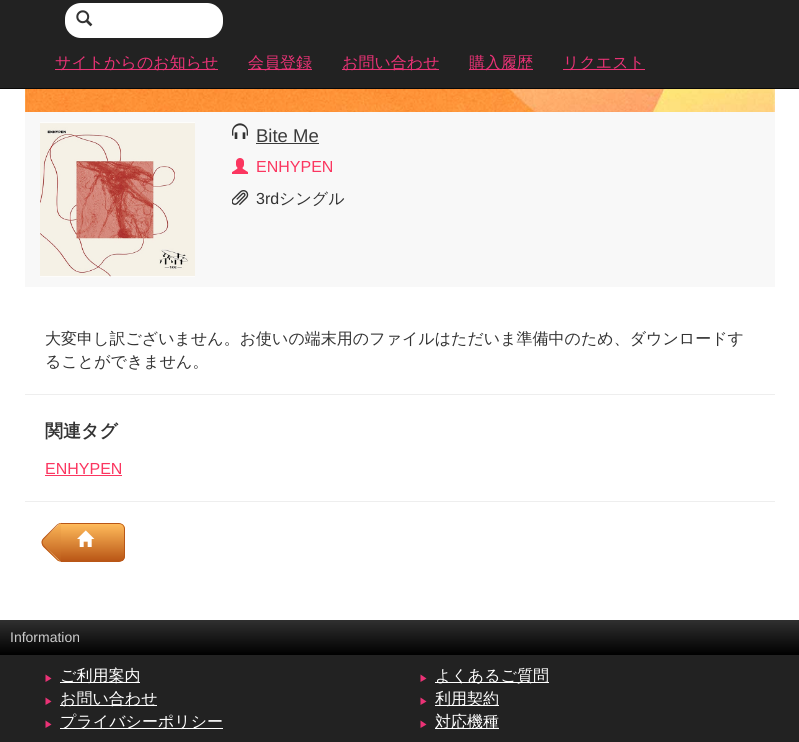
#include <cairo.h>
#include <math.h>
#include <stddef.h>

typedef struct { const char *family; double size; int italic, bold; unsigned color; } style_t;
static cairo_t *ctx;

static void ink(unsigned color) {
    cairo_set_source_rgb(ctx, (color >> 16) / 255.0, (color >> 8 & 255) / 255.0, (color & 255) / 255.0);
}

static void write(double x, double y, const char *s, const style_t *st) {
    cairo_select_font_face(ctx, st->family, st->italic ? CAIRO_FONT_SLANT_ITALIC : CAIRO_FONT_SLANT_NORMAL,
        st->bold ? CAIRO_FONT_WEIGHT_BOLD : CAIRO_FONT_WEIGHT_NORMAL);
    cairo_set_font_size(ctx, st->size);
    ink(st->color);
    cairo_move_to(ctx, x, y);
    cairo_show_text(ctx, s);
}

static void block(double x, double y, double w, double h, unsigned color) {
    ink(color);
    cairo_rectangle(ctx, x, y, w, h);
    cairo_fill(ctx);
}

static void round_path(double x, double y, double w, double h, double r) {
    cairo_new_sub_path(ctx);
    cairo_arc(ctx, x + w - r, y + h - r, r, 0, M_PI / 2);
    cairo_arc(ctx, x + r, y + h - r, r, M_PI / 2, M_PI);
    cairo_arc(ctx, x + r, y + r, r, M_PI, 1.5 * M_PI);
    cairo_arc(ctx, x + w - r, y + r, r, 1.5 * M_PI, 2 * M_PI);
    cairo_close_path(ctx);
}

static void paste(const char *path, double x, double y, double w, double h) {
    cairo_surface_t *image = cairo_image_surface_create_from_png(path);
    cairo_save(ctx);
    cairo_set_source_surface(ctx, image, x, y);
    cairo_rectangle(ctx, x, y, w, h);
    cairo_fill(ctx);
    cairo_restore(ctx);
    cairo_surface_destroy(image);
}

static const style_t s1 = {"WenQuanYi Zen Hei Medium", 16, 0, 0, 0xeb3276};
static const style_t s2 = {"Liberation Sans", 18.5, 0, 0, 0x3b3b3b};
static const style_t s3 = {"Liberation Sans", 16, 0, 0, 0xfb3660};
static const style_t s4 = {"Liberation Sans", 16, 0, 0, 0x333333};
static const style_t s5 = {"WenQuanYi Zen Hei Medium", 16, 0, 0, 0x333333};
static const style_t s6 = {"WenQuanYi Zen Hei", 18, 0, 1, 0x333333};
static const style_t s7 = {"Liberation Sans", 14, 0, 0, 0xcccccc};
static const style_t s8 = {"WenQuanYi Zen Hei Medium", 16, 0, 0, 0xffffff};

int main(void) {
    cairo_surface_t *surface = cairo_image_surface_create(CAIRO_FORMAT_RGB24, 799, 742);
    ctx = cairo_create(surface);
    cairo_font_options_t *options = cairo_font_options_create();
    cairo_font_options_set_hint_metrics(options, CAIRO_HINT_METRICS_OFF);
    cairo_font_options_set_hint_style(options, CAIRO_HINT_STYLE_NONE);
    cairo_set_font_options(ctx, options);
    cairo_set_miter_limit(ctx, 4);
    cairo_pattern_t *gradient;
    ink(0xffffff);
    cairo_paint(ctx);
    block(0, 0, 799, 88, 0x222222);
    block(0, 88, 799, 1, 0x080808);
    ink(0xffffff);
    round_path(65, 3, 158, 35, 16);
    cairo_fill(ctx);
    paste("pic1.png", 76, 10, 17, 17);
    block(55, 69, 163, 1, 0xeb3276);
    write(55, 68, "サイトからのお知らせ", &s1);
    block(248, 69, 64, 1, 0xeb3276);
    write(248, 68, "会員登録", &s1);
    block(342, 69, 97, 1, 0xeb3276);
    write(342, 68, "お問い合わせ", &s1);
    block(469, 69, 64, 1, 0xeb3276);
    write(469, 68, "購入履歴", &s1);
    block(563, 69, 82, 1, 0xeb3276);
    write(563, 68, "リクエスト", &s1);
    paste("pic2.png", 25, 89, 750, 23);
    block(25, 112, 750, 175, 0xf8f8f8);
    paste("pic3.png", 40, 122, 155, 155);
    paste("pic4.png", 232, 123, 16, 16);
    write(256, 142, "Bite Me", &s2);
    block(256, 143, 63, 1, 0x3b3b3b);
    paste("pic5.png", 232, 158, 16, 16);
    write(256, 172, "ENHYPEN", &s3);
    paste("pic6.png", 232, 190, 17, 16);
    write(256, 204, "3rd", &s4);
    write(279, 204, "シングル", &s5);
    write(45, 344, "大変申し訳ございません。お使いの端末用のファイルはただいま準備中のため、ダウンロードす", &s5);
    write(45, 367, "ることができません。", &s5);
    block(25, 394, 750, 1, 0xeeeeee);
    write(45, 437, "関連タグ", &s6);
    write(45, 474, "ENHYPEN", &s3);
    block(45, 475, 77, 1, 0xfb3660);
    block(25, 501, 750, 1, 0xeeeeee);
    gradient = cairo_pattern_create_linear(62, 521, 62, 563);
    cairo_pattern_add_color_stop_rgba(gradient, 0, 1, 0.733, 0.357, 1);
    cairo_pattern_add_color_stop_rgba(gradient, 1, 0.725, 0.337, 0.086, 1);
    cairo_set_source(ctx, gradient);
    cairo_pattern_destroy(gradient);
    cairo_new_path(ctx);
    cairo_move_to(ctx, 65.5, 525);
    cairo_line_to(ctx, 78.5, 538);
    cairo_curve_to(ctx, 80.5, 540, 81, 543.5, 79, 546);
    cairo_line_to(ctx, 64.5, 560.5);
    cairo_curve_to(ctx, 63.5, 561.5, 62, 561.5, 60.5, 561.5);
    cairo_line_to(ctx, 42, 544);
    cairo_curve_to(ctx, 41.5, 542.5, 41.5, 541, 42, 540);
    cairo_line_to(ctx, 60, 523);
    cairo_curve_to(ctx, 62, 522.5, 64, 523.5, 65.5, 525);
    cairo_close_path(ctx);
    cairo_fill(ctx);
    gradient = cairo_pattern_create_linear(40, 542, 40, 585);
    cairo_pattern_add_color_stop_rgba(gradient, 0, 1, 0.733, 0.357, 1);
    cairo_pattern_add_color_stop_rgba(gradient, 1, 0.725, 0.337, 0.086, 1);
    cairo_set_source(ctx, gradient);
    cairo_pattern_destroy(gradient);
    cairo_new_path(ctx);
    cairo_move_to(ctx, 60.5, 561.5);
    cairo_curve_to(ctx, 59, 561.5, 57.5, 561, 56.5, 559.5);
    cairo_line_to(ctx, 43.5, 547);
    cairo_curve_to(ctx, 43, 546, 42, 545, 42, 544);
    cairo_close_path(ctx);
    cairo_fill(ctx);
    ink(0xb95616);
    cairo_set_fill_rule(ctx, CAIRO_FILL_RULE_EVEN_ODD);
    cairo_new_path(ctx);
    cairo_move_to(ctx, 65.5, 525);
    cairo_line_to(ctx, 78.5, 538);
    cairo_curve_to(ctx, 81, 540.5, 81, 544.5, 78.5, 547);
    cairo_line_to(ctx, 65.5, 559.5);
    cairo_curve_to(ctx, 63, 562, 59, 562, 56.5, 559.5);
    cairo_line_to(ctx, 43.5, 547);
    cairo_curve_to(ctx, 41, 544.5, 41, 540.5, 43.5, 538);
    cairo_line_to(ctx, 56.5, 525);
    cairo_curve_to(ctx, 59, 522.5, 63, 522.5, 65.5, 525);
    cairo_close_path(ctx);
    cairo_move_to(ctx, 65.5, 525);
    cairo_line_to(ctx, 78.5, 538);
    cairo_curve_to(ctx, 81, 540.5, 81, 544.5, 78.5, 547);
    cairo_line_to(ctx, 65.5, 559.5);
    cairo_curve_to(ctx, 63.5, 562, 59.5, 561.5, 57, 559);
    cairo_line_to(ctx, 44.5, 546);
    cairo_curve_to(ctx, 42, 544, 42, 540.5, 44.5, 538.5);
    cairo_line_to(ctx, 57, 525.5);
    cairo_curve_to(ctx, 59.5, 523, 63.5, 523, 65.5, 525);
    cairo_close_path(ctx);
    cairo_fill(ctx);
    cairo_save(ctx);
    cairo_set_fill_rule(ctx, CAIRO_FILL_RULE_WINDING);
    cairo_new_path(ctx);
    cairo_move_to(ctx, 61, 523);
    cairo_line_to(ctx, 119, 523);
    cairo_curve_to(ctx, 122.5, 523, 125, 525.5, 125, 529);
    cairo_line_to(ctx, 125, 556);
    cairo_curve_to(ctx, 125, 559.5, 122.5, 562, 119, 562);
    cairo_line_to(ctx, 61, 562);
    cairo_close_path(ctx);
    cairo_clip(ctx);
    gradient = cairo_pattern_create_linear(93, 524, 93, 561);
    cairo_pattern_add_color_stop_rgba(gradient, 0, 1, 0.733, 0.357, 1);
    cairo_pattern_add_color_stop_rgba(gradient, 1, 0.725, 0.337, 0.086, 1);
    cairo_set_source(ctx, gradient);
    cairo_pattern_destroy(gradient);
    cairo_rectangle(ctx, 61, 524, 64, 37);
    cairo_fill(ctx);
    cairo_restore(ctx);
    cairo_new_path(ctx);
    cairo_move_to(ctx, 61, 523);
    cairo_line_to(ctx, 119, 523);
    cairo_curve_to(ctx, 122, 523, 125, 526, 125, 529);
    cairo_line_to(ctx, 125, 556);
    cairo_curve_to(ctx, 125, 559, 122, 562, 119, 562);
    cairo_line_to(ctx, 61, 562);
    cairo_close_path(ctx);
    cairo_move_to(ctx, 61, 524);
    cairo_line_to(ctx, 119, 524);
    cairo_curve_to(ctx, 122, 524, 124, 526, 124, 529);
    cairo_line_to(ctx, 124, 556);
    cairo_curve_to(ctx, 124, 559, 122, 561, 119, 561);
    cairo_line_to(ctx, 61, 561);
    cairo_close_path(ctx);
    cairo_fill(ctx);
    paste("pic7.png", 77, 530, 18, 17);
    block(0, 655, 799, 87, 0x222222);
    gradient = cairo_pattern_create_linear(400, 620, 400, 655);
    cairo_pattern_add_color_stop_rgba(gradient, 0, 0.188, 0.188, 0.188, 1);
    cairo_pattern_add_color_stop_rgba(gradient, 1, 0, 0, 0, 1);
    cairo_set_source(ctx, gradient);
    cairo_pattern_destroy(gradient);
    cairo_rectangle(ctx, 0, 620, 799, 35);
    cairo_fill(ctx);
    write(10, 642, "Information", &s7);
    ink(0xeb3276);
    cairo_set_fill_rule(ctx, CAIRO_FILL_RULE_WINDING);
    cairo_new_path(ctx);
    cairo_move_to(ctx, 45.5, 682);
    cairo_line_to(ctx, 51.5, 678.5);
    cairo_line_to(ctx, 45.5, 674.5);
    cairo_close_path(ctx);
    cairo_fill(ctx);
    block(60, 682, 80, 1, 0xffffff);
    write(60, 681, "ご利用案内", &s8);
    ink(0xeb3276);
    cairo_new_path(ctx);
    cairo_move_to(ctx, 420.5, 682);
    cairo_line_to(ctx, 426.5, 678.5);
    cairo_line_to(ctx, 420.5, 674.5);
    cairo_close_path(ctx);
    cairo_fill(ctx);
    block(435, 682, 114, 1, 0xffffff);
    write(435, 681, "よくあるご質問", &s8);
    ink(0xeb3276);
    cairo_new_path(ctx);
    cairo_move_to(ctx, 45.5, 705);
    cairo_line_to(ctx, 51.5, 701.5);
    cairo_line_to(ctx, 45.5, 697.5);
    cairo_close_path(ctx);
    cairo_fill(ctx);
    block(60, 705, 97, 1, 0xffffff);
    write(60, 704, "お問い合わせ", &s8);
    ink(0xeb3276);
    cairo_new_path(ctx);
    cairo_move_to(ctx, 420.5, 705);
    cairo_line_to(ctx, 426.5, 701.5);
    cairo_line_to(ctx, 420.5, 697.5);
    cairo_close_path(ctx);
    cairo_fill(ctx);
    block(435, 705, 64, 1, 0xffffff);
    write(435, 704, "利用契約", &s8);
    ink(0xeb3276);
    cairo_new_path(ctx);
    cairo_move_to(ctx, 45.5, 728);
    cairo_line_to(ctx, 51.5, 724.5);
    cairo_line_to(ctx, 45.5, 720.5);
    cairo_close_path(ctx);
    cairo_fill(ctx);
    block(60, 728, 163, 1, 0xffffff);
    write(60, 727, "プライバシーポリシー", &s8);
    ink(0xeb3276);
    cairo_new_path(ctx);
    cairo_move_to(ctx, 420.5, 728);
    cairo_line_to(ctx, 426.5, 724.5);
    cairo_line_to(ctx, 420.5, 720.5);
    cairo_close_path(ctx);
    cairo_fill(ctx);
    block(435, 728, 64, 1, 0xffffff);
    write(435, 727, "対応機種", &s8);
    cairo_surface_write_to_png(surface, "screenshot.png");
    cairo_font_options_destroy(options);
    cairo_destroy(ctx);
    cairo_surface_destroy(surface);
    return 0;
}
